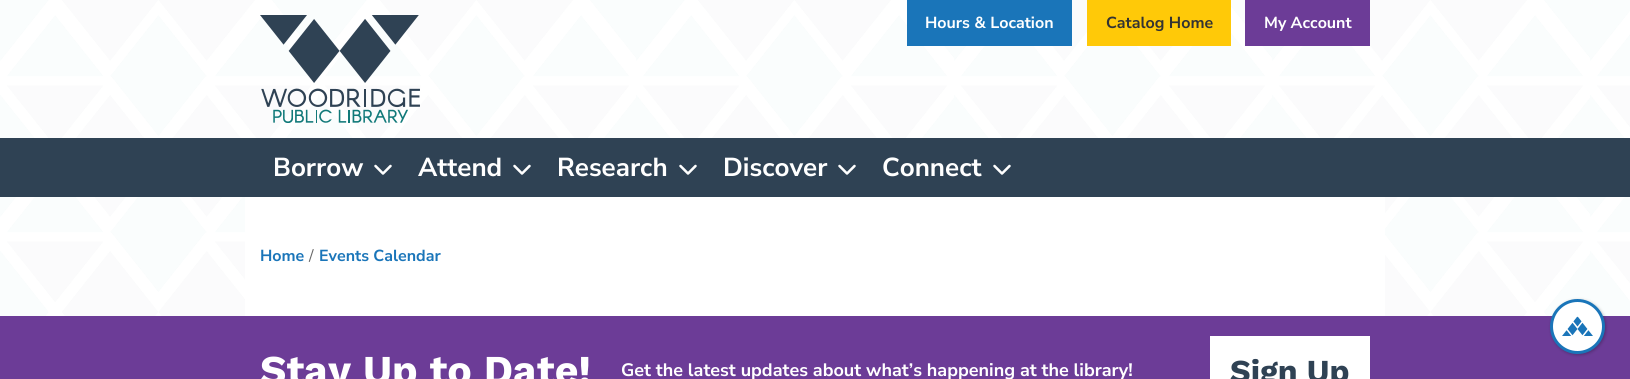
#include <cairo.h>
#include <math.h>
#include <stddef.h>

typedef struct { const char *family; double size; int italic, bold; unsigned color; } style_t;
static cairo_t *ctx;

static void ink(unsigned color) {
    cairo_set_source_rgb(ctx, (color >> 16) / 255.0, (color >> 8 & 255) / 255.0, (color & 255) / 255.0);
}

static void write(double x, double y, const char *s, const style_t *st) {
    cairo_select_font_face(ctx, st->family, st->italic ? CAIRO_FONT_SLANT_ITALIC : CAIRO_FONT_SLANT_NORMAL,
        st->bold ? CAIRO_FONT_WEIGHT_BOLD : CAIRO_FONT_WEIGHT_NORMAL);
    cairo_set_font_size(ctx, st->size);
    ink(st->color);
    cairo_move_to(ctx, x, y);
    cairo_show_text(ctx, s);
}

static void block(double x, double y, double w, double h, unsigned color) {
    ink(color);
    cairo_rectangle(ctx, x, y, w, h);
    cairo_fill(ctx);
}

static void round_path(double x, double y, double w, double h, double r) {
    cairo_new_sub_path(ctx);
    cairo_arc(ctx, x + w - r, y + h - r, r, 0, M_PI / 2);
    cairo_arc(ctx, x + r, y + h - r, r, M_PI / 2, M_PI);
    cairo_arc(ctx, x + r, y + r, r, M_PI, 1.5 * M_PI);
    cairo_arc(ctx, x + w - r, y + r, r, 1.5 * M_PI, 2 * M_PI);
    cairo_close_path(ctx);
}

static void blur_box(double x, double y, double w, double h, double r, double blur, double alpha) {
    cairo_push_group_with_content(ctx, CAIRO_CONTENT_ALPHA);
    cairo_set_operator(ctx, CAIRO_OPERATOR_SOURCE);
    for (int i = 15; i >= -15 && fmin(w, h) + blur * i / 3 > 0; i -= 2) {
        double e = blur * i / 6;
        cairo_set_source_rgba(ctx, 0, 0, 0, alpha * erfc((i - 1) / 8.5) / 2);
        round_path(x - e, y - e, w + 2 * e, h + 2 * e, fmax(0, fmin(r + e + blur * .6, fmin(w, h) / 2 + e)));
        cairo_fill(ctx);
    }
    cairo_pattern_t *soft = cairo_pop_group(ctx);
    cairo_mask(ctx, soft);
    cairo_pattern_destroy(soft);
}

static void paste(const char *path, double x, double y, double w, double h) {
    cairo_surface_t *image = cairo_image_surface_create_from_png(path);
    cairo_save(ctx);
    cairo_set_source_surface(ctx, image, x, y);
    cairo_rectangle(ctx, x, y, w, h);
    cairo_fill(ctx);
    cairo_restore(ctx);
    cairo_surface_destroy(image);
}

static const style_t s1 = {"Nunito Sans", 16, 0, 1, 0xffffff};
static const style_t s2 = {"Nunito Sans", 16, 0, 1, 0x333333};
static const style_t s3 = {"Nunito Sans", 26, 0, 1, 0xffffff};
static const style_t s4 = {"Nunito Sans", 16, 0, 1, 0x1a75b9};
static const style_t s5 = {"Nunito Sans", 16, 0, 0, 0x666666};
static const style_t s6 = {"Work Sans", 41, 0, 1, 0xffffff};
static const style_t s7 = {"Nunito Sans", 18, 0, 1, 0xffffff};
static const style_t s8 = {"Work Sans", 32, 0, 1, 0x2f4254};

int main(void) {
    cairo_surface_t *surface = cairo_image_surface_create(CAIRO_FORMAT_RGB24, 1630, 379);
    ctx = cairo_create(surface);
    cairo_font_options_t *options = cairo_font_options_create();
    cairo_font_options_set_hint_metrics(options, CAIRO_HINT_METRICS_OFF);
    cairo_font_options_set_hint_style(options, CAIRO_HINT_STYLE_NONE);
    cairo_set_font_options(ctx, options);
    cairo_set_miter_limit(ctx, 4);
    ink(0xffffff);
    cairo_paint(ctx);
    paste("pic1.png", 0, 0, 1630, 316);
    paste("pic2.png", 260, 15, 160, 108);
    block(907, 0, 165, 46, 0x1a75b9);
    write(925, 28, "Hours & Location", &s1);
    block(1087, 0, 144, 46, 0xffc908);
    write(1106, 28, "Catalog Home", &s2);
    block(1245, 0, 125, 46, 0x6c3c97);
    write(1264, 28, "My Account", &s1);
    block(0, 138, 1630, 59, 0x2f4254);
    write(273, 176, "Borrow", &s3);
    paste("pic3.png", 374, 164, 18, 11);
    write(418, 176, "Attend", &s3);
    paste("pic3.png", 513, 164, 18, 11);
    write(557, 176, "Research", &s3);
    paste("pic3.png", 679, 164, 18, 11);
    write(723, 176, "Discover", &s3);
    paste("pic3.png", 838, 164, 18, 11);
    write(882, 176, "Connect", &s3);
    paste("pic3.png", 993, 164, 18, 11);
    block(245, 197, 1140, 119, 0xffffff);
    write(260, 261, "Home", &s4);
    write(309, 261, "/", &s5);
    write(319, 261, "Events Calendar", &s4);
    block(0, 316, 1630, 63, 0x6c3c97);
    ink(0x000000);
    blur_box(1551, 300, 55, 55, 27.5, 1.5, 0.25);
    ink(0xffffff);
    cairo_arc(ctx, 1577.5, 326.5, 26, 0, 2 * M_PI);
    cairo_fill_preserve(ctx);
    ink(0x1a75b9);
    cairo_set_line_width(ctx, 3);
    cairo_stroke(ctx);
    paste("pic4.png", 1562, 316, 31, 20);
    write(260, 384, "Stay Up to Date!", &s6);
    write(621, 376, "Get the latest updates about what’s happening at the library!", &s7);
    block(1210, 336, 160, 43, 0xffffff);
    write(1230, 382, "Sign Up", &s8);
    cairo_surface_write_to_png(surface, "screenshot.png");
    cairo_font_options_destroy(options);
    cairo_destroy(ctx);
    cairo_surface_destroy(surface);
    return 0;
}
